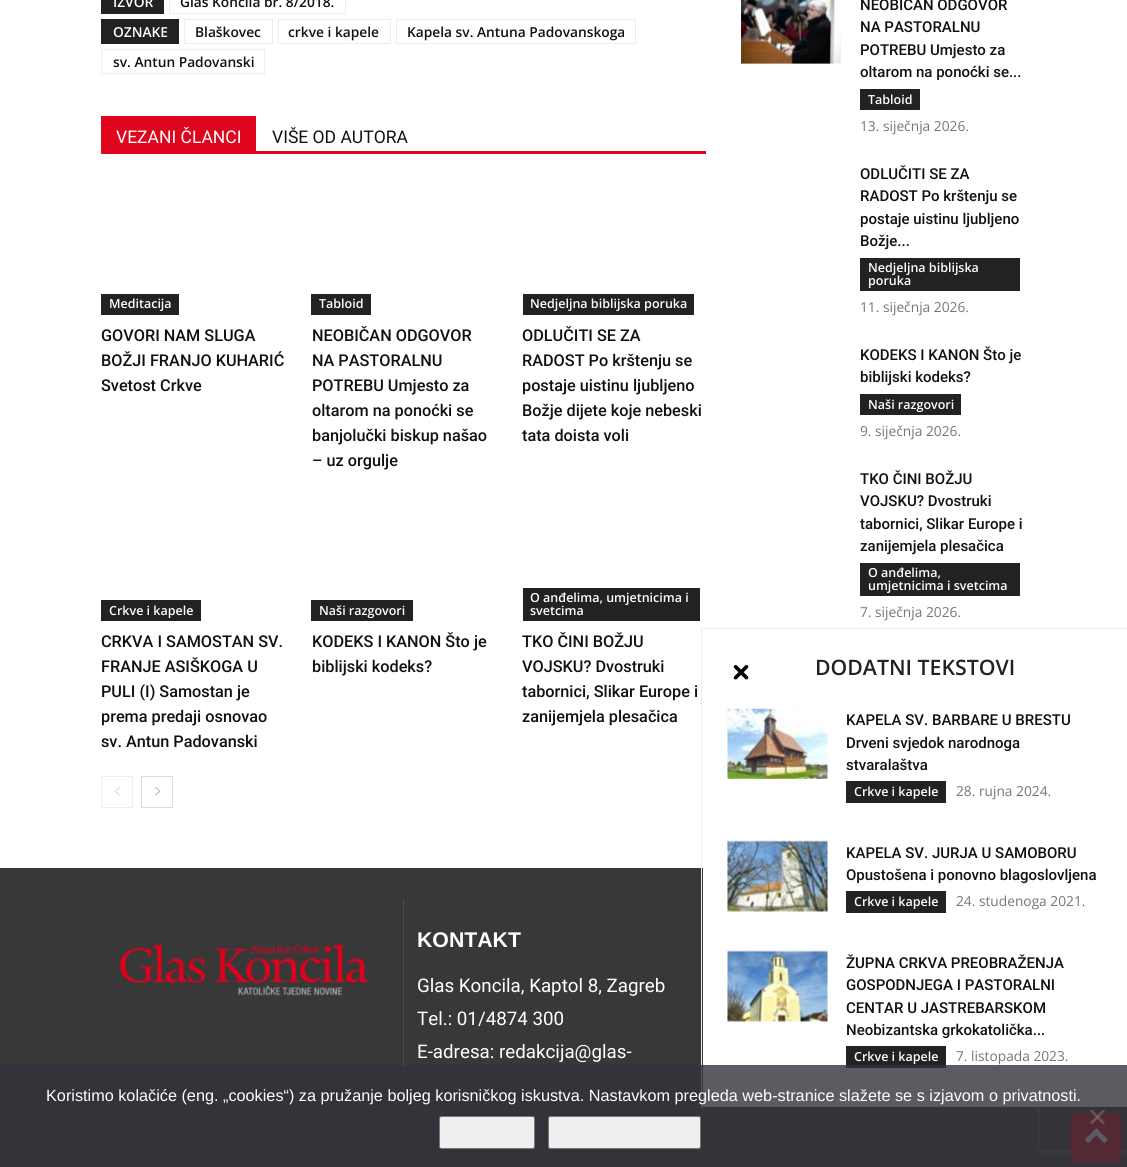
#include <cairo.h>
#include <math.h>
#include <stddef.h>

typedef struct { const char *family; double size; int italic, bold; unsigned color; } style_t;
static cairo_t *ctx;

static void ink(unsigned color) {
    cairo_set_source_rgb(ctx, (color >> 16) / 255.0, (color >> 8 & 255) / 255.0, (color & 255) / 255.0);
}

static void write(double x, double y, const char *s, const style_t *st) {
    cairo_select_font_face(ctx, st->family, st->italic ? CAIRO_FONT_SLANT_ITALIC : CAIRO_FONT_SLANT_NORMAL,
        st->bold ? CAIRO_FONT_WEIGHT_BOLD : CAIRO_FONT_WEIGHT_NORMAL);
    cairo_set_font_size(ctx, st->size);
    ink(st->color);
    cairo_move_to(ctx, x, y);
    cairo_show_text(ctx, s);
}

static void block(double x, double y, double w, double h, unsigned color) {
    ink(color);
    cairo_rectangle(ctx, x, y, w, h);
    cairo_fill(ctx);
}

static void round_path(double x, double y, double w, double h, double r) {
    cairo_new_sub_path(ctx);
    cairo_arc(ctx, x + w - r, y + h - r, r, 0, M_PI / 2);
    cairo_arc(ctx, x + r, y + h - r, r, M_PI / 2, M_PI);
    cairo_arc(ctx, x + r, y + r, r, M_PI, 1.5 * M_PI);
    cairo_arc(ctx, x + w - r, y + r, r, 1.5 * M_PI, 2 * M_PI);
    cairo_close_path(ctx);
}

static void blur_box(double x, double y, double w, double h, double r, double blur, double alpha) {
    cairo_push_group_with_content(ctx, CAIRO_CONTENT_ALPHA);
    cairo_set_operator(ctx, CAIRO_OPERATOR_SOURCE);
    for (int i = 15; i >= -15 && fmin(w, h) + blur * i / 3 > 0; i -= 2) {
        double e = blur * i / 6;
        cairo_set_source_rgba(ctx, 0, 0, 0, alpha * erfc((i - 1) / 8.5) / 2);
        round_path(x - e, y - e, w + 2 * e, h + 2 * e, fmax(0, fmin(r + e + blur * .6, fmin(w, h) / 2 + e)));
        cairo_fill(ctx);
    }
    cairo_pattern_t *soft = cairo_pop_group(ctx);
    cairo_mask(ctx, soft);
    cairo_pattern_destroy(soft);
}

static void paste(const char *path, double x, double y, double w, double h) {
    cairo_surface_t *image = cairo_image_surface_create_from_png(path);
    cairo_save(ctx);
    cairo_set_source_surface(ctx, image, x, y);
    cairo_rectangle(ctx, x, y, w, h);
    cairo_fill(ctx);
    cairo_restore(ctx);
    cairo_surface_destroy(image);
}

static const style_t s1 = {"Open Sans SemiBold", 13.75, 0, 0, 0xffffff};
static const style_t s2 = {"Open Sans SemiBold", 13.75, 0, 0, 0x111111};
static const style_t s3 = {"Roboto", 17.5, 0, 0, 0xffffff};
static const style_t s4 = {"Roboto", 17.5, 0, 0, 0x111111};
static const style_t s5 = {"Open Sans SemiBold", 12.5, 0, 0, 0xffffff};
static const style_t s6 = {"Roboto Medium", 16.25, 0, 0, 0x111111};
static const style_t s7 = {"Roboto Medium", 15, 0, 0, 0x111111};
static const style_t s8 = {"Open Sans", 13.75, 0, 0, 0x767676};
static const style_t s9 = {"Liberation Sans", 21.25, 0, 1, 0xffffff};
static const style_t s10 = {"Roboto", 18.75, 0, 0, 0xffffff};
static const style_t s11 = {"Open Sans SemiBold", 21.25, 0, 0, 0x222222};
static const style_t s12 = {"Liberation Sans", 16.25, 0, 0, 0xffffff};

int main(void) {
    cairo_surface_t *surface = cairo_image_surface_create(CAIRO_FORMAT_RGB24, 1127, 1167);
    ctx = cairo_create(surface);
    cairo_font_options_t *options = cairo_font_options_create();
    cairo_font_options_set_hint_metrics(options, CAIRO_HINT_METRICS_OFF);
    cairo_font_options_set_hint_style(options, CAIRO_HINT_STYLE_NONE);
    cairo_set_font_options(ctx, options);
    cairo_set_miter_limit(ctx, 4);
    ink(0xffffff);
    cairo_paint(ctx);
    block(101, 0, 63, 14, 0x222222);
    write(113, 7, "IZVOR", &s1);
    cairo_rectangle(ctx, 169.5, -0.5, 176, 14);
    ink(0xededed);
    cairo_set_line_width(ctx, 1);
    cairo_stroke(ctx);
    write(180, 7, "Glas Koncila br. 8/2018.", &s2);
    block(101, 19, 78, 25, 0x222222);
    write(113, 37, "OZNAKE", &s1);
    cairo_rectangle(ctx, 184.5, 19.5, 88, 24);
    ink(0xededed);
    cairo_stroke(ctx);
    write(195, 37, "Blaškovec", &s2);
    cairo_rectangle(ctx, 278.5, 19.5, 112, 24);
    ink(0xededed);
    cairo_stroke(ctx);
    write(288, 37, "crkve i kapele", &s2);
    cairo_rectangle(ctx, 396.5, 19.5, 239, 24);
    ink(0xededed);
    cairo_stroke(ctx);
    write(407, 37, "Kapela sv. Antuna Padovanskoga", &s2);
    cairo_rectangle(ctx, 101.5, 49.5, 163, 24);
    ink(0xededed);
    cairo_stroke(ctx);
    write(113, 67, "sv. Antun Padovanski", &s2);
    block(101, 151, 605, 3, 0xde051d);
    block(101, 116, 155, 35, 0xde051d);
    write(116, 143, "VEZANI ČLANCI", &s3);
    write(272, 143, "VIŠE OD AUTORA", &s4);
    block(101, 294, 78, 21, 0x222222);
    write(109, 308, "Meditacija", &s5);
    write(101, 341, "GOVORI NAM SLUGA", &s6);
    write(101, 366, "BOŽJI FRANJO KUHARIĆ", &s6);
    write(101, 391, "Svetost Crkve", &s6);
    block(311, 294, 60, 21, 0x222222);
    write(319, 308, "Tabloid", &s5);
    write(312, 341, "NEOBIČAN ODGOVOR", &s6);
    write(312, 366, "NA PASTORALNU", &s6);
    write(312, 391, "POTREBU Umjesto za", &s6);
    write(312, 416, "oltarom na ponoćki se", &s6);
    write(312, 441, "banjolučki biskup našao", &s6);
    write(312, 466, "– uz orgulje", &s6);
    block(523, 294, 171, 21, 0x222222);
    write(530, 308, "Nedjeljna biblijska poruka", &s5);
    write(522, 341, "ODLUČITI SE ZA", &s6);
    write(522, 366, "RADOST Po krštenju se", &s6);
    write(522, 391, "postaje uistinu ljubljeno", &s6);
    write(522, 416, "Božje dijete koje nebeski", &s6);
    write(522, 441, "tata doista voli", &s6);
    block(101, 600, 100, 21, 0x222222);
    write(109, 615, "Crkve i kapele", &s5);
    write(101, 647, "CRKVA I SAMOSTAN SV.", &s6);
    write(101, 672, "FRANJE ASIŠKOGA U", &s6);
    write(101, 697, "PULI (I) Samostan je", &s6);
    write(101, 722, "prema predaji osnovao", &s6);
    write(101, 747, "sv. Antun Padovanski", &s6);
    block(311, 600, 102, 21, 0x222222);
    write(319, 615, "Naši razgovori", &s5);
    write(312, 647, "KODEKS I KANON Što je", &s6);
    write(312, 672, "biblijski kodeks?", &s6);
    block(523, 588, 177, 33, 0x222222);
    write(530, 602, "O anđelima, umjetnicima i", &s5);
    write(530, 615, "svetcima", &s5);
    write(522, 647, "TKO ČINI BOŽJU", &s6);
    write(522, 672, "VOJSKU? Dvostruki", &s6);
    write(522, 697, "tabornici, Slikar Europe i", &s6);
    write(522, 722, "zanijemjela plesačica", &s6);
    cairo_rectangle(ctx, 101.5, 776.5, 31, 31);
    ink(0xeeeeee);
    cairo_stroke(ctx);
    paste("pic1.png", 114, 787, 6, 9);
    cairo_rectangle(ctx, 141.5, 776.5, 31, 31);
    ink(0xdcdcdc);
    cairo_stroke(ctx);
    paste("pic2.png", 155, 787, 6, 9);
    paste("pic3.png", 741, 0, 100, 64);
    write(860, 10, "NEOBIČAN ODGOVOR", &s7);
    write(860, 32, "NA PASTORALNU", &s7);
    write(860, 55, "POTREBU Umjesto za", &s7);
    write(860, 77, "oltarom na ponoćki se...", &s7);
    block(860, 89, 60, 21, 0x222222);
    write(868, 104, "Tabloid", &s5);
    write(860, 131, "13. siječnja 2026.", &s8);
    write(860, 179, "ODLUČITI SE ZA", &s7);
    write(860, 201, "RADOST Po krštenju se", &s7);
    write(860, 224, "postaje uistinu ljubljeno", &s7);
    write(860, 246, "Božje...", &s7);
    block(860, 258, 160, 33, 0x222222);
    write(868, 272, "Nedjeljna biblijska", &s5);
    write(868, 285, "poruka", &s5);
    write(860, 312, "11. siječnja 2026.", &s8);
    write(860, 360, "KODEKS I KANON Što je", &s7);
    write(860, 382, "biblijski kodeks?", &s7);
    block(860, 394, 101, 21, 0x222222);
    write(868, 409, "Naši razgovori", &s5);
    write(860, 436, "9. siječnja 2026.", &s8);
    write(860, 484, "TKO ČINI BOŽJU", &s7);
    write(860, 506, "VOJSKU? Dvostruki", &s7);
    write(860, 529, "tabornici, Slikar Europe i", &s7);
    write(860, 551, "zanijemjela plesačica", &s7);
    block(860, 563, 160, 33, 0x222222);
    write(868, 577, "O anđelima,", &s5);
    write(868, 590, "umjetnicima i svetcima", &s5);
    write(860, 617, "7. siječnja 2026.", &s8);
    block(0, 868, 1127, 299, 0x383838);
    block(403, 899, 1, 256, 0x4c4c4c);
    paste("pic4.png", 119, 944, 251, 52);
    block(715, 1107, 1, 48, 0x4c4c4c);
    write(417, 947, "KONTAKT", &s9);
    write(417, 992, "Glas Koncila, Kaptol 8, Zagreb", &s10);
    write(417, 1025, "Tel.: 01/4874 300", &s10);
    write(417, 1058, "E-adresa: redakcija@glas-", &s10);
    cairo_save(ctx);
    cairo_set_fill_rule(ctx, CAIRO_FILL_RULE_EVEN_ODD);
    cairo_new_path(ctx);
    cairo_move_to(ctx, 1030, 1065);
    cairo_line_to(ctx, 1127, 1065);
    cairo_line_to(ctx, 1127, 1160);
    cairo_line_to(ctx, 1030, 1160);
    cairo_close_path(ctx);
    cairo_move_to(ctx, 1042.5, 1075);
    cairo_line_to(ctx, 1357.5, 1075);
    cairo_curve_to(ctx, 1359, 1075, 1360, 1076, 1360, 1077.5);
    cairo_line_to(ctx, 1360, 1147.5);
    cairo_curve_to(ctx, 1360, 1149, 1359, 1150, 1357.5, 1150);
    cairo_line_to(ctx, 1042.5, 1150);
    cairo_curve_to(ctx, 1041, 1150, 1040, 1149, 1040, 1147.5);
    cairo_line_to(ctx, 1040, 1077.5);
    cairo_curve_to(ctx, 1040, 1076, 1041, 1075, 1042.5, 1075);
    cairo_close_path(ctx);
    cairo_clip(ctx);
    ink(0x808080);
    blur_box(1040, 1075, 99, 75, 2.5, 3, 1);
    cairo_restore(ctx);
    block(703, 868, 424, 238, 0xffffff);
    block(701, 628, 426, 1, 0xededed);
    block(701, 1106, 426, 1, 0xededed);
    block(701, 628, 1, 480, 0xededed);
    paste("pic5.png", 733, 664, 16, 16);
    write(815, 675, "DODATNI TEKSTOVI", &s11);
    paste("pic6.png", 727, 708, 101, 71);
    write(846, 725, "KAPELA SV. BARBARE U BRESTU", &s7);
    write(846, 748, "Drveni svjedok narodnoga", &s7);
    write(846, 770, "stvaralaštva", &s7);
    block(846, 781, 100, 22, 0x222222);
    write(854, 796, "Crkve i kapele", &s5);
    write(956, 796, "28. rujna 2024.", &s8);
    paste("pic7.png", 727, 840, 101, 72);
    write(846, 858, "KAPELA SV. JURJA U SAMOBORU", &s7);
    write(846, 880, "Opustošena i ponovno blagoslovljena", &s7);
    block(846, 891, 100, 22, 0x222222);
    write(854, 906, "Crkve i kapele", &s5);
    write(956, 906, "24. studenoga 2021.", &s8);
    paste("pic8.png", 727, 950, 101, 72);
    write(846, 968, "ŽUPNA CRKVA PREOBRAŽENJA", &s7);
    write(846, 990, "GOSPODNJEGA I PASTORALNI", &s7);
    write(846, 1013, "CENTAR U JASTREBARSKOM", &s7);
    write(846, 1035, "Neobizantska grkokatolička...", &s7);
    block(846, 1046, 100, 22, 0x222222);
    write(854, 1061, "Crkve i kapele", &s5);
    write(956, 1061, "7. listopada 2023.", &s8);
    block(1071, 1113, 50, 50, 0xde051d);
    paste("pic9.png", 1085, 1128, 23, 15);
    cairo_set_source_rgba(ctx, 0.196, 0.196, 0.227, 0.8);
    cairo_rectangle(ctx, 0, 1065, 1127, 102);
    cairo_fill(ctx);
    write(46, 1101, "Koristimo kolačiće (eng. „cookies“) za pružanje boljeg korisničkog iskustva. Nastavkom pregleda web-stranice slažete se s izjavom o privatnosti.", &s12);
    ink(0xefefef);
    round_path(439.5, 1116.5, 95, 32, 2);
    cairo_fill_preserve(ctx);
    ink(0x767676);
    cairo_stroke(ctx);
    ink(0xefefef);
    round_path(548.5, 1116.5, 152, 32, 2);
    cairo_fill_preserve(ctx);
    ink(0x767676);
    cairo_stroke(ctx);
    cairo_set_source_rgba(ctx, 0.502, 0.502, 0.502, 0.5);
    cairo_new_path(ctx);
    cairo_move_to(ctx, 1103, 1109.5);
    cairo_line_to(ctx, 1105, 1111);
    cairo_line_to(ctx, 1092, 1124.5);
    cairo_line_to(ctx, 1090, 1122.5);
    cairo_close_path(ctx);
    cairo_fill(ctx);
    cairo_new_path(ctx);
    cairo_move_to(ctx, 1090, 1111);
    cairo_line_to(ctx, 1092, 1109.5);
    cairo_line_to(ctx, 1105, 1122.5);
    cairo_line_to(ctx, 1103, 1124.5);
    cairo_close_path(ctx);
    cairo_fill(ctx);
    cairo_surface_write_to_png(surface, "screenshot.png");
    cairo_font_options_destroy(options);
    cairo_destroy(ctx);
    cairo_surface_destroy(surface);
    return 0;
}
